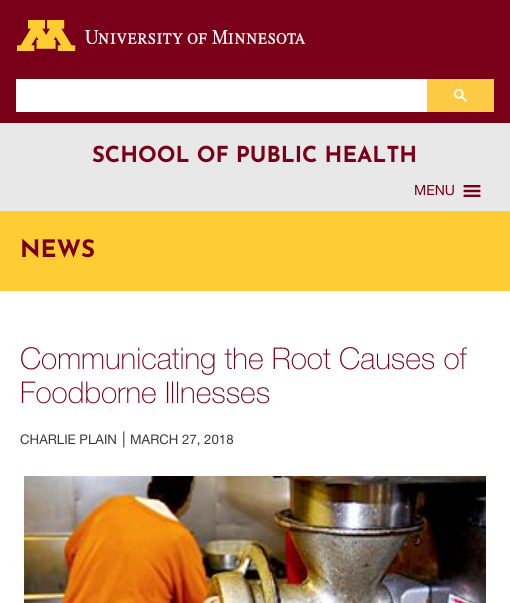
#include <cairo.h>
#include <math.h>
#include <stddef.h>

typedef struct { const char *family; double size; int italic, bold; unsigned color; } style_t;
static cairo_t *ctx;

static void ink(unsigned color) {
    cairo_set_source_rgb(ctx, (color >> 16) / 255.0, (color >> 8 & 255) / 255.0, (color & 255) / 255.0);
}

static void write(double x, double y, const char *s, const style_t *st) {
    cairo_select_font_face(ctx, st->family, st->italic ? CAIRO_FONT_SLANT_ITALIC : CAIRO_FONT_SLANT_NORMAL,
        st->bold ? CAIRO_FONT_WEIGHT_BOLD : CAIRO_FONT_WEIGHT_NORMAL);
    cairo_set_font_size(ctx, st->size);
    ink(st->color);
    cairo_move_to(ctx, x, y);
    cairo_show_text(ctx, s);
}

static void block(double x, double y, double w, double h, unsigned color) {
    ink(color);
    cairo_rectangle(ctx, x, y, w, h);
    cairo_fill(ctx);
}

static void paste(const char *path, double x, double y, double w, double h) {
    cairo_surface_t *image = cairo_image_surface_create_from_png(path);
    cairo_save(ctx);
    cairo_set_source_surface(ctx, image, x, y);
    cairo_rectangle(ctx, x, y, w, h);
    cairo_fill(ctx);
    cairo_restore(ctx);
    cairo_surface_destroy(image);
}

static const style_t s1 = {"Josefin Sans", 22, 0, 1, 0x7a0019};
static const style_t s2 = {"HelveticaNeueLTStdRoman", 14, 0, 0, 0x7a0019};
static const style_t s3 = {"Josefin Sans", 24, 0, 1, 0x7a0019};
static const style_t s4 = {"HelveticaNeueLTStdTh", 30, 0, 0, 0x7a0019};
static const style_t s5 = {"HelveticaNeueLTStdRoman", 13.25, 0, 0, 0x3a3a3a};
static const style_t s6 = {"HelveticaNeueLTStdRoman", 16, 0, 0, 0x3a3a3a};

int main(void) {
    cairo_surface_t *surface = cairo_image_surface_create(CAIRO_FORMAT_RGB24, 510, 603);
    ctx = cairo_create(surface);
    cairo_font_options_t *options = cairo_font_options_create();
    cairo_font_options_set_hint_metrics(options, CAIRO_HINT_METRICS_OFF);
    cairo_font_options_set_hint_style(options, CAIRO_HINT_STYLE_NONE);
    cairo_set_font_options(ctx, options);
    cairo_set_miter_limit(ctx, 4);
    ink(0xffffff);
    cairo_paint(ctx);
    block(0, 0, 510, 123, 0x7a0019);
    paste("pic1.png", 17, 20, 288, 31);
    block(16, 79, 411, 33, 0xffffff);
    block(427, 79, 67, 33, 0xfdcb43);
    paste("pic2.png", 454, 89, 13, 13);
    block(0, 123, 510, 88, 0xe8e8e9);
    write(92, 162, "SCHOOL OF PUBLIC HEALTH", &s1);
    write(414, 195, "MENU", &s2);
    paste("pic3.png", 463, 185, 18, 12);
    block(0, 211, 510, 80, 0xffcc33);
    write(20, 257, "NEWS", &s3);
    write(20, 369, "Communicating the Root Causes of", &s4);
    write(20, 403, "Foodborne Illnesses", &s4);
    write(20, 444, "CHARLIE PLAIN", &s5);
    write(122, 444, "|", &s6);
    write(130, 444, "MARCH 27, 2018", &s5);
    paste("pic4.png", 24, 476, 462, 127);
    cairo_surface_write_to_png(surface, "screenshot.png");
    cairo_font_options_destroy(options);
    cairo_destroy(ctx);
    cairo_surface_destroy(surface);
    return 0;
}
